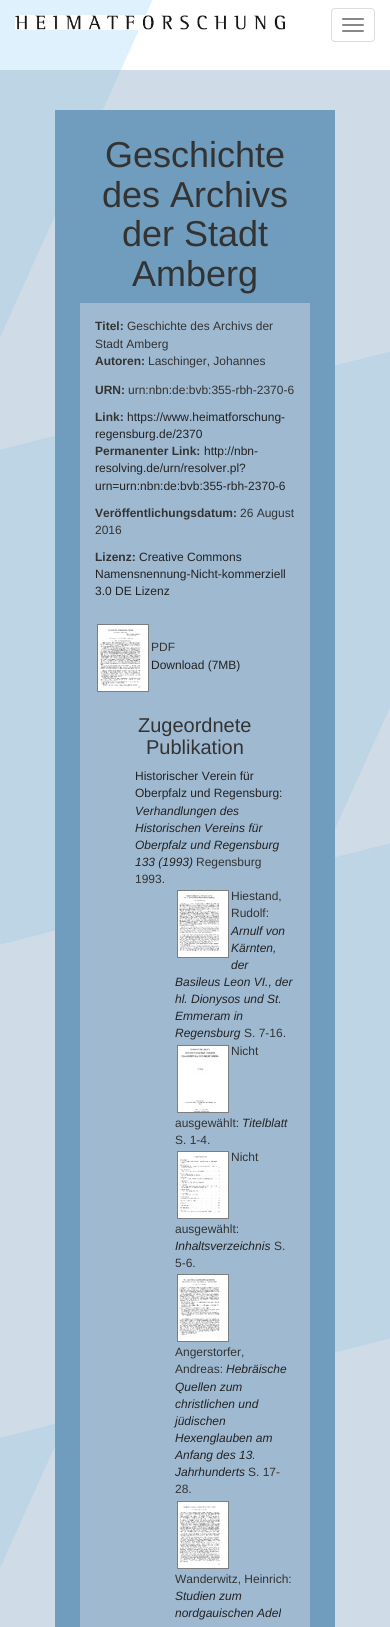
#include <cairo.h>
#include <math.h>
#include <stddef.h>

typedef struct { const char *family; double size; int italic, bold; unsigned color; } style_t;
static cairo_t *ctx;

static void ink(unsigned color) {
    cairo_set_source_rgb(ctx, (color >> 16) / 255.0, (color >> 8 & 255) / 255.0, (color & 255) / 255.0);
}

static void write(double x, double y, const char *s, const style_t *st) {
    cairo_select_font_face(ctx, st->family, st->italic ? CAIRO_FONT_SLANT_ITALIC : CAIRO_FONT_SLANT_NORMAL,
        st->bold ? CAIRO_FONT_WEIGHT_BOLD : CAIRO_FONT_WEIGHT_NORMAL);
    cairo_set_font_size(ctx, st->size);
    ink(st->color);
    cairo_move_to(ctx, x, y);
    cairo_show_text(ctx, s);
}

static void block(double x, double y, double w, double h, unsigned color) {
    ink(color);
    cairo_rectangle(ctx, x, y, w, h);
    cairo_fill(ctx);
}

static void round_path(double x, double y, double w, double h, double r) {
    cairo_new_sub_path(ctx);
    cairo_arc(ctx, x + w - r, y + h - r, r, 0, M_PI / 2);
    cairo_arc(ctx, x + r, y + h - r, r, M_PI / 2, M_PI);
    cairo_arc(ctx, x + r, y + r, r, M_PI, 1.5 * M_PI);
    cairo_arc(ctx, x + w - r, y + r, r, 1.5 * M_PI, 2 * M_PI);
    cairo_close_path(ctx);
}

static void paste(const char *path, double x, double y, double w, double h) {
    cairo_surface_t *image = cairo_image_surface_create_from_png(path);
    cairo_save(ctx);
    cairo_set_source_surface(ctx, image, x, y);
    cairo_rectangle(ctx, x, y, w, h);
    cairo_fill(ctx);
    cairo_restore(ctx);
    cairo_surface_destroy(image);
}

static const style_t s1 = {"Liberation Sans", 36, 0, 0, 0x333333};
static const style_t s2 = {"Liberation Sans", 12, 0, 1, 0x333333};
static const style_t s3 = {"Liberation Sans", 12, 0, 0, 0x333333};
static const style_t s4 = {"Liberation Sans", 12, 0, 0, 0x222222};
static const style_t s5 = {"Liberation Sans", 20, 0, 0, 0x333333};
static const style_t s6 = {"Liberation Sans", 12, 1, 0, 0x222222};

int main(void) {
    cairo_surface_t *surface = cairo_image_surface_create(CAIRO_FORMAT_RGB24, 390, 1627);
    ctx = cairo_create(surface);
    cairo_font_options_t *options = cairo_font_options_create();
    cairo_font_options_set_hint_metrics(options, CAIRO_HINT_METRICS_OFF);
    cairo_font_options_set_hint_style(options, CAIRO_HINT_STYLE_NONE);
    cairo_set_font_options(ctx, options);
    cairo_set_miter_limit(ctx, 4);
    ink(0xcfdce8);
    cairo_paint(ctx);
    paste("pic1.png", 0, 0, 390, 1568);
    paste("pic2.png", 15, 15, 270, 15);
    round_path(331.5, 8.5, 43, 33, 3.5);
    ink(0xdddddd);
    cairo_set_line_width(ctx, 1);
    cairo_stroke(ctx);
    ink(0x888888);
    round_path(342, 18, 22, 2, 1);
    cairo_fill(ctx);
    round_path(342, 24, 22, 2, 1);
    cairo_fill(ctx);
    round_path(342, 30, 22, 2, 1);
    cairo_fill(ctx);
    block(55, 110, 280, 1517, 0x709dbd);
    write(105, 167, "Geschichte", &s1);
    write(102, 207, "des Archivs", &s1);
    write(122, 246, "der Stadt", &s1);
    write(132, 286, "Amberg", &s1);
    block(80, 303, 230, 1324, 0x9fb9d0);
    write(95, 330, "Titel:", &s2);
    write(127, 330, "Geschichte des Archivs der", &s3);
    write(95, 348, "Stadt Amberg", &s3);
    write(95, 365, "Autoren:", &s2);
    write(148, 365, "Laschinger, Johannes", &s3);
    write(95, 394, "URN:", &s2);
    write(128, 394, "urn:nbn:de:bvb:355-rbh-2370-6", &s3);
    write(95, 421, "Link:", &s2);
    write(127, 421, "https://www.heimatforschung-", &s4);
    write(95, 438, "regensburg.de/2370", &s4);
    write(95, 455, "Permanenter Link:", &s2);
    write(204, 455, "http://nbn-", &s4);
    write(95, 472, "resolving.de/urn/resolver.pl?", &s4);
    write(95, 490, "urn=urn:nbn:de:bvb:355-rbh-2370-6", &s4);
    write(95, 517, "Veröffentlichungsdatum:", &s2);
    write(240, 517, "26 August", &s3);
    write(95, 534, "2016", &s3);
    write(95, 561, "Lizenz:", &s2);
    write(139, 561, "Creative Commons", &s4);
    write(95, 578, "Namensnennung-Nicht-kommerziell", &s4);
    write(95, 595, "3.0 DE Lizenz", &s4);
    paste("pic3.png", 97, 624, 52, 68);
    write(151, 651, "PDF", &s3);
    write(151, 669, "Download (7MB)", &s4);
    write(138, 732, "Zugeordnete", &s5);
    write(146, 754, "Publikation", &s5);
    write(135, 780, "Historischer Verein für", &s4);
    write(135, 797, "Oberpfalz und Regensburg:", &s4);
    write(135, 815, "Verhandlungen des", &s6);
    write(135, 832, "Historischen Vereins für", &s6);
    write(135, 849, "Oberpfalz und Regensburg", &s6);
    write(135, 866, "133 (1993)", &s6);
    write(196, 866, "Regensburg", &s3);
    write(135, 883, "1993.", &s3);
    paste("pic4.png", 177, 890, 52, 68);
    write(231, 900, "Hiestand,", &s3);
    write(231, 917, "Rudolf:", &s3);
    write(231, 935, "Arnulf von", &s6);
    write(231, 952, "Kärnten,", &s6);
    write(231, 969, "der", &s6);
    write(175, 986, "Basileus Leon VI., der", &s6);
    write(175, 1003, "hl. Dionysos und St.", &s6);
    write(175, 1020, "Emmeram in", &s6);
    write(175, 1037, "Regensburg", &s6);
    write(244, 1037, "S. 7-16.", &s3);
    paste("pic5.png", 177, 1045, 52, 68);
    write(231, 1055, "Nicht", &s3);
    write(175, 1127, "ausgewählt:", &s3);
    write(242, 1127, "Titelblatt", &s6);
    write(175, 1144, "S. 1-4.", &s3);
    paste("pic6.png", 177, 1151, 52, 68);
    write(231, 1161, "Nicht", &s3);
    write(175, 1233, "ausgewählt:", &s3);
    write(175, 1250, "Inhaltsverzeichnis", &s6);
    write(274, 1250, "S.", &s3);
    write(175, 1267, "5-6.", &s3);
    paste("pic7.png", 177, 1274, 52, 68);
    write(175, 1356, "Angerstorfer,", &s3);
    write(175, 1373, "Andreas:", &s3);
    write(226, 1373, "Hebräische", &s6);
    write(175, 1391, "Quellen zum", &s6);
    write(175, 1408, "christlichen und", &s6);
    write(175, 1425, "jüdischen", &s6);
    write(175, 1442, "Hexenglauben am", &s6);
    write(175, 1459, "Anfang des 13.", &s6);
    write(175, 1476, "Jahrhunderts", &s6);
    write(248, 1476, "S. 17-", &s3);
    write(175, 1493, "28.", &s3);
    paste("pic8.png", 177, 1501, 52, 68);
    write(175, 1583, "Wanderwitz, Heinrich:", &s3);
    write(175, 1600, "Studien zum", &s6);
    write(175, 1617, "nordgauischen Adel", &s6);
    cairo_surface_write_to_png(surface, "screenshot.png");
    cairo_font_options_destroy(options);
    cairo_destroy(ctx);
    cairo_surface_destroy(surface);
    return 0;
}
